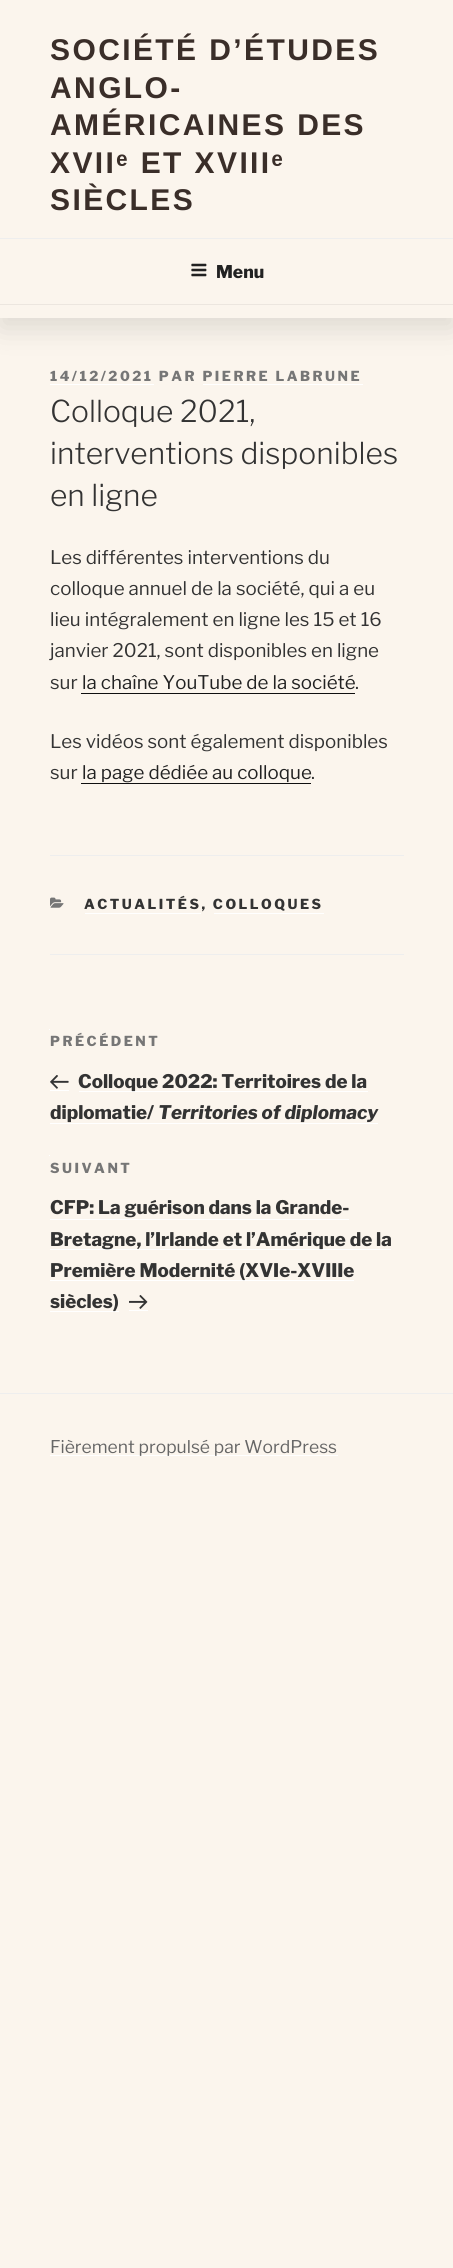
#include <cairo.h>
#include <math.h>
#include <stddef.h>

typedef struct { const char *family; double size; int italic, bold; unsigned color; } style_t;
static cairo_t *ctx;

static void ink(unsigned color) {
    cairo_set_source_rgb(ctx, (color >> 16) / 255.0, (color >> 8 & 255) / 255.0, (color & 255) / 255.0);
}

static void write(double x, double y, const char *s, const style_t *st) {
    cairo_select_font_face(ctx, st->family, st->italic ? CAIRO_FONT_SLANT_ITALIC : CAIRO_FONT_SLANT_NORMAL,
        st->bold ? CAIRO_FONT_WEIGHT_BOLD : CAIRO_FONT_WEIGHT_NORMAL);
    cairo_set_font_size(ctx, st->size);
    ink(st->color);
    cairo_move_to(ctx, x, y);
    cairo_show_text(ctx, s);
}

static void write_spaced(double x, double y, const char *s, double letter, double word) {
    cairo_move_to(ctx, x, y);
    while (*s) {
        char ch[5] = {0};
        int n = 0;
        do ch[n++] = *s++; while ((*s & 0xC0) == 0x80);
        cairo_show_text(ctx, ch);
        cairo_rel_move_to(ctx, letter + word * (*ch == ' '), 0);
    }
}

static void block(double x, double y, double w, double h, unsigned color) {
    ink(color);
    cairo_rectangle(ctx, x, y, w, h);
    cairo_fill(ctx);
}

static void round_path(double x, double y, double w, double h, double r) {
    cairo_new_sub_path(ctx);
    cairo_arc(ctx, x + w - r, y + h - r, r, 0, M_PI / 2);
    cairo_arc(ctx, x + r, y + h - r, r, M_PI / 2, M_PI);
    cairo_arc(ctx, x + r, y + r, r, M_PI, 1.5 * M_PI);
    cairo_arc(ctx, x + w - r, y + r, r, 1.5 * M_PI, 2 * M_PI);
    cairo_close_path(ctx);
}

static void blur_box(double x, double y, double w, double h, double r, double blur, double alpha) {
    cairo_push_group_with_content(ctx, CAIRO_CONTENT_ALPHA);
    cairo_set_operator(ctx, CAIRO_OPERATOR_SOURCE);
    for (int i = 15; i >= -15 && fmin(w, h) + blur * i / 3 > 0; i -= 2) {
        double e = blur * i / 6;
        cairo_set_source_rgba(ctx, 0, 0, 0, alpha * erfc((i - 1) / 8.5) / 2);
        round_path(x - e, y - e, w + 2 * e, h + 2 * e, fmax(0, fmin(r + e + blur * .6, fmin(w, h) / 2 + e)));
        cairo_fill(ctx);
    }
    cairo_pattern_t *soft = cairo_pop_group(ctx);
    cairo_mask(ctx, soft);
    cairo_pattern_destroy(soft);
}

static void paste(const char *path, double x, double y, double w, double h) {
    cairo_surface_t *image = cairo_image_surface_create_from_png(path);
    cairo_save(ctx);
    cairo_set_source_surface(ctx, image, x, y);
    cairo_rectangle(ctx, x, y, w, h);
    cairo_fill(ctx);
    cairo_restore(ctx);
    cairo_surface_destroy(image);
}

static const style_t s1 = {"Libre Franklin Thin", 17.5, 0, 0, 0x222222};
static const style_t s2 = {"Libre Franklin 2 Thin", 30, 0, 0, 0x333333};
static const style_t s3 = {"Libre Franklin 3 Thin", 18.75, 0, 0, 0x333333};
static const style_t s4 = {"Libre Franklin 3 Thin", 18.75, 0, 0, 0x222222};
static const style_t s5 = {"Libre Franklin Thin", 18.75, 0, 0, 0x333333};
static const style_t s6 = {"Libre Franklin Thin", 18.75, 1, 0, 0x333333};
static const style_t s7 = {"Libre Franklin 3 Thin", 17.5, 0, 0, 0x666666};

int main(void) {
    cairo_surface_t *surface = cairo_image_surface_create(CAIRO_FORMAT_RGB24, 453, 2268);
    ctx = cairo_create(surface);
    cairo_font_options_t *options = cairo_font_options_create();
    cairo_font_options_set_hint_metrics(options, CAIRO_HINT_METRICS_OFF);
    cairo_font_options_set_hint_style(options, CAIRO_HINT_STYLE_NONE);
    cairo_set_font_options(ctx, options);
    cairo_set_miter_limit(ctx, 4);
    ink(0xfbf5ed);
    cairo_paint(ctx);
    ink(0x000000);
    blur_box(0, 10, 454, 318, 0, 15, 0.12);
    block(0, 0, 453, 318, 0xfbf5ed);
    cairo_select_font_face(ctx, "Liberation Sans", CAIRO_FONT_SLANT_NORMAL, CAIRO_FONT_WEIGHT_BOLD);
    cairo_set_font_size(ctx, 30);
    ink(0x3a2e29);
    write_spaced(50, 60, "SOCIÉTÉ D’ÉTUDES", 2.4, 0);
    write_spaced(50, 98, "ANGLO-", 2.4, 0);
    write_spaced(50, 135, "AMÉRICAINES DES", 2.4, 0);
    write_spaced(50, 173, "XVIIᵉ ET XVIIIᵉ", 2.4, 0);
    write_spaced(50, 210, "SIÈCLES", 2.4, 0);
    block(0, 238, 453, 1, 0xeeeeee);
    block(0, 304, 453, 1, 0xece6df);
    paste("pic1.png", 191, 263, 16, 14);
    write(216, 278, "Menu", &s1);
    cairo_set_font_size(ctx, 13.75);
    ink(0x767676);
    write_spaced(50, 381, "14/12/2021 PAR PIERRE LABRUNE", 2.5, 0);
    block(50, 384, 104, 1, 0xffffff);
    block(203, 384, 160, 1, 0xffffff);
    write(50, 422, "Colloque 2021,", &s2);
    write(50, 464, "interventions disponibles", &s2);
    write(50, 506, "en ligne", &s2);
    write(50, 564, "Les différentes interventions du", &s3);
    write(50, 595, "colloque annuel de la société, qui a eu", &s3);
    write(50, 626, "lieu intégralement en ligne les 15 et 16", &s3);
    write(50, 657, "janvier 2021, sont disponibles en ligne", &s3);
    write(50, 689, "sur", &s3);
    write(82, 689, "la chaîne YouTube de la société", &s4);
    block(81, 693, 274, 1, 0x0f0f0f);
    write(355, 689, ".", &s3);
    write(50, 748, "Les vidéos sont également disponibles", &s3);
    write(50, 779, "sur", &s3);
    write(82, 779, "la page dédiée au colloque", &s4);
    block(81, 783, 230, 1, 0x0f0f0f);
    write(311, 779, ".", &s3);
    block(50, 855, 354, 1, 0xeeeeee);
    block(50, 954, 354, 1, 0xeeeeee);
    paste("pic2.png", 50, 897, 14, 11);
    cairo_select_font_face(ctx, "Libre Franklin Thin", CAIRO_FONT_SLANT_NORMAL, CAIRO_FONT_WEIGHT_NORMAL);
    cairo_set_font_size(ctx, 13.75);
    ink(0x333333);
    write_spaced(84, 909, "ACTUALITÉS, COLLOQUES", 2.5, 0);
    block(85, 913, 116, 1, 0xffffff);
    block(214, 913, 110, 1, 0xffffff);
    block(49, 1029, 1, 1, 0xffffff);
    block(50, 1090, 19, 1, 0xffffff);
    block(79, 1091, 289, 1, 0xffffff);
    block(50, 1123, 328, 1, 0xffffff);
    ink(0x767676);
    write_spaced(50, 1046, "PRÉCÉDENT", 2.5, 0);
    paste("pic3.png", 50, 1075, 19, 14);
    write(78, 1088, "Colloque 2022: Territoires de la", &s5);
    write(50, 1119, "diplomatie/", &s5);
    write(158, 1119, "Territories of diplomacy", &s6);
    block(49, 1155, 1, 1, 0xffffff);
    block(50, 1219, 299, 1, 0xffffff);
    block(50, 1249, 341, 1, 0xffffff);
    block(50, 1280, 304, 1, 0xffffff);
    block(50, 1311, 69, 1, 0xffffff);
    block(129, 1310, 19, 1, 0xffffff);
    cairo_select_font_face(ctx, "Libre Franklin Thin", CAIRO_FONT_SLANT_NORMAL, CAIRO_FONT_WEIGHT_NORMAL);
    cairo_set_font_size(ctx, 13.75);
    ink(0x767676);
    write_spaced(50, 1173, "SUIVANT", 2.5, 0);
    write(50, 1214, "CFP: La guérison dans la Grande-", &s5);
    write(50, 1246, "Bretagne, l’Irlande et l’Amérique de la", &s5);
    write(50, 1277, "Première Modernité (XVIe-XVIIIe", &s5);
    write(50, 1308, "siècles)", &s5);
    paste("pic4.png", 129, 1295, 19, 14);
    block(0, 1393, 453, 1, 0xeeeeee);
    block(50, 1455, 288, 1, 0xffffff);
    write(50, 1453, "Fièrement propulsé par WordPress", &s7);
    cairo_surface_write_to_png(surface, "screenshot.png");
    cairo_font_options_destroy(options);
    cairo_destroy(ctx);
    cairo_surface_destroy(surface);
    return 0;
}
